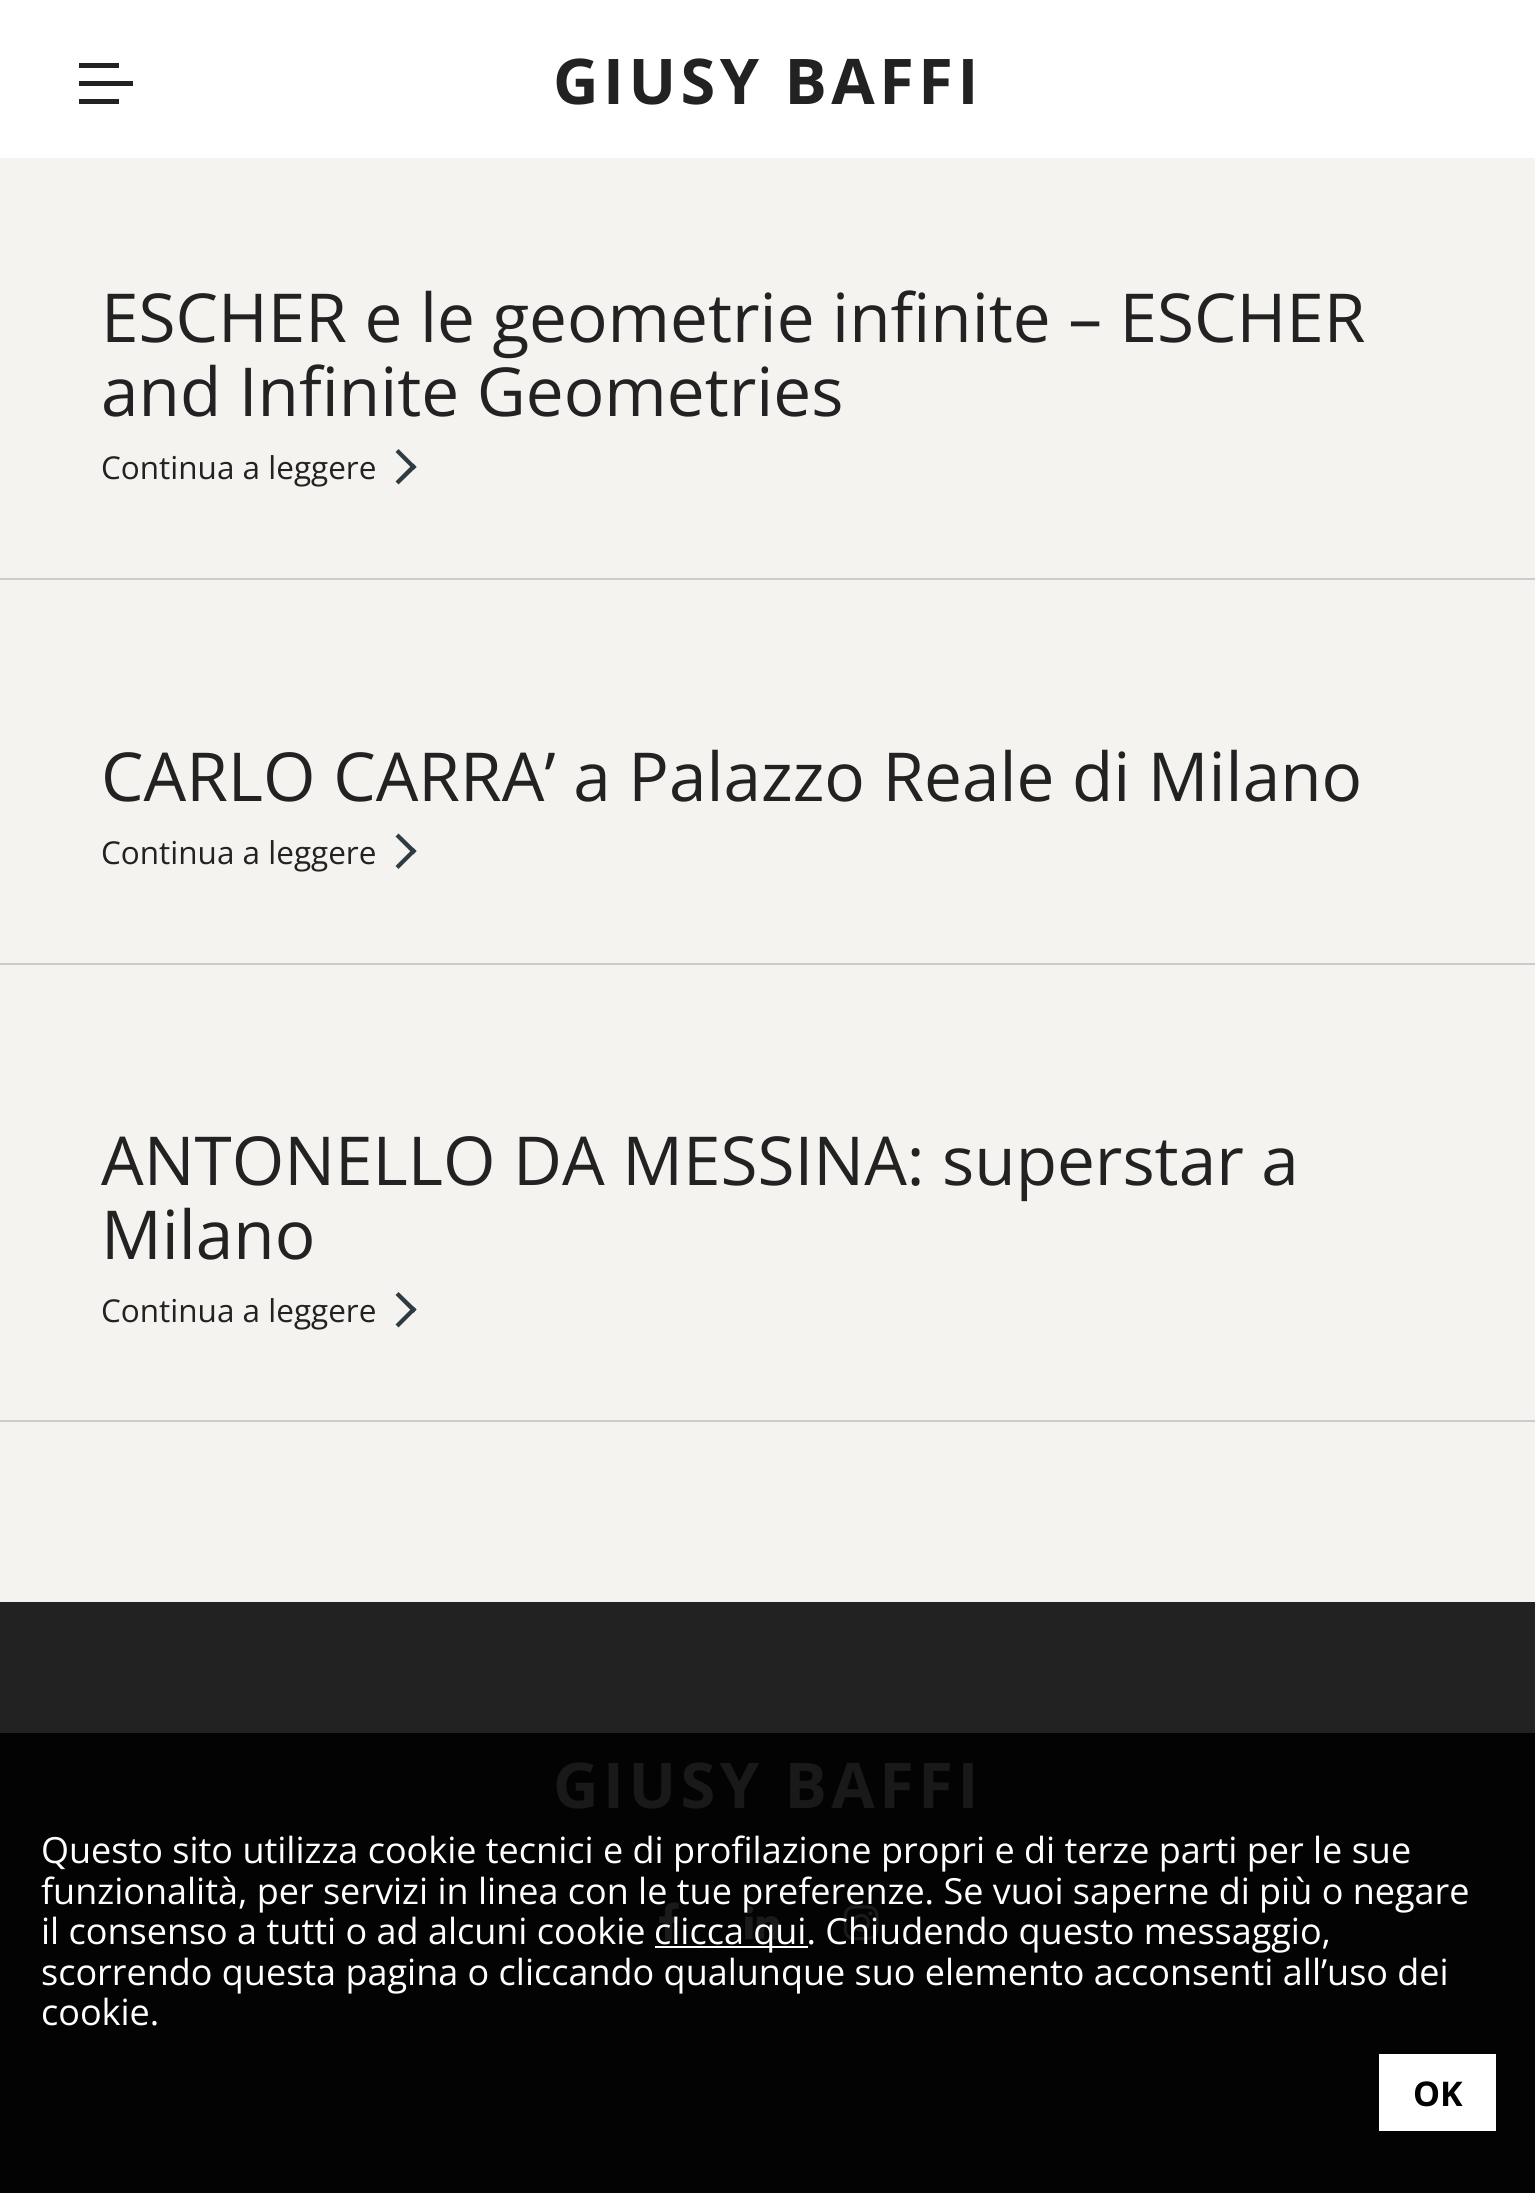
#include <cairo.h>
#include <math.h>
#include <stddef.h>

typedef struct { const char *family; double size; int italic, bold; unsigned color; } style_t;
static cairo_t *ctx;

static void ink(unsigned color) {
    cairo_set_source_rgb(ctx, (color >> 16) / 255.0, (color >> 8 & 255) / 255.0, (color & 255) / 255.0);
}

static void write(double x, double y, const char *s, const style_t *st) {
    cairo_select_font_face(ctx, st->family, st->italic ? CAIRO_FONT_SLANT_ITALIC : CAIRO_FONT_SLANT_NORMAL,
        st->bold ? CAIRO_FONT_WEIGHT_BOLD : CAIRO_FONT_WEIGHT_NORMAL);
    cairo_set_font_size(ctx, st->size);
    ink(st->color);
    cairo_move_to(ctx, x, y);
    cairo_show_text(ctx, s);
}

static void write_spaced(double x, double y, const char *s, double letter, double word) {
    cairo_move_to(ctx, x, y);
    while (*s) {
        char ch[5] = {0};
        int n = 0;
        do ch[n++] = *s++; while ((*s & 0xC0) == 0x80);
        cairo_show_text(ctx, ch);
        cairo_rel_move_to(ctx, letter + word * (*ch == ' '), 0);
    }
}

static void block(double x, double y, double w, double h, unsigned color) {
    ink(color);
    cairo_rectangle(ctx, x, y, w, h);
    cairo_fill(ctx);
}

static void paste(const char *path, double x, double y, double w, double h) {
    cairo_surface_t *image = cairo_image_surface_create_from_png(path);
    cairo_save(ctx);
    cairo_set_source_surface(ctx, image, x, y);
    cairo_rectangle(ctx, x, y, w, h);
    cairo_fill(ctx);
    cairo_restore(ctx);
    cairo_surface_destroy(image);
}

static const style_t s1 = {"Open Sans", 67.5, 0, 0, 0x222222};
static const style_t s2 = {"Open Sans", 31.5, 0, 0, 0x222222};
static const style_t s3 = {"Open Sans", 36, 0, 0, 0xffffff};
static const style_t s4 = {"Open Sans", 34, 0, 1, 0x000000};

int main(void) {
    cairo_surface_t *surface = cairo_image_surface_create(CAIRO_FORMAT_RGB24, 1535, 2193);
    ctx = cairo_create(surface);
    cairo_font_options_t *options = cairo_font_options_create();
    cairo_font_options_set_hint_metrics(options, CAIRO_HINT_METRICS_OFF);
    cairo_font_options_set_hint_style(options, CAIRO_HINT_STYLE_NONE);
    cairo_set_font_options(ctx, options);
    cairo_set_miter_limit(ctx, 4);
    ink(0xf4f3f0);
    cairo_paint(ctx);
    block(0, 0, 1535, 158, 0xffffff);
    block(79, 63, 40, 5, 0x222222);
    block(79, 81, 54, 5, 0x222222);
    block(79, 99, 40, 5, 0x222222);
    cairo_select_font_face(ctx, "Open Sans", CAIRO_FONT_SLANT_NORMAL, CAIRO_FONT_WEIGHT_BOLD);
    cairo_set_font_size(ctx, 63);
    write_spaced(553, 104, "GIUSY BAFFI", 4.5, 0);
    block(0, 578, 1535, 2, 0xcccccc);
    write(101, 342, "ESCHER e le geometrie infinite – ESCHER", &s1);
    write(101, 416, "and Infinite Geometries", &s1);
    write(101, 479, "Continua a leggere", &s2);
    ink(0x2e3b41);
    cairo_new_path(ctx);
    cairo_move_to(ctx, 398.5, 449);
    cairo_line_to(ctx, 416.5, 467);
    cairo_line_to(ctx, 413.5, 470);
    cairo_line_to(ctx, 395.5, 452);
    cairo_close_path(ctx);
    cairo_fill(ctx);
    cairo_new_path(ctx);
    cairo_move_to(ctx, 413.5, 463.5);
    cairo_line_to(ctx, 416.5, 467);
    cairo_line_to(ctx, 398.5, 484.5);
    cairo_line_to(ctx, 395.5, 481.5);
    cairo_close_path(ctx);
    cairo_fill(ctx);
    block(0, 963, 1535, 2, 0xcccccc);
    write(101, 801, "CARLO CARRA’ a Palazzo Reale di Milano", &s1);
    write(101, 864, "Continua a leggere", &s2);
    ink(0x2e3b41);
    cairo_new_path(ctx);
    cairo_move_to(ctx, 398.5, 833.5);
    cairo_line_to(ctx, 416.5, 851);
    cairo_line_to(ctx, 413.5, 854.5);
    cairo_line_to(ctx, 395.5, 836.5);
    cairo_close_path(ctx);
    cairo_fill(ctx);
    cairo_new_path(ctx);
    cairo_move_to(ctx, 413.5, 848);
    cairo_line_to(ctx, 416.5, 851);
    cairo_line_to(ctx, 398.5, 869);
    cairo_line_to(ctx, 395.5, 866);
    cairo_close_path(ctx);
    cairo_fill(ctx);
    block(0, 1420, 1535, 2, 0xcccccc);
    write(101, 1185, "ANTONELLO DA MESSINA: superstar a", &s1);
    write(101, 1259, "Milano", &s1);
    write(101, 1322, "Continua a leggere", &s2);
    ink(0x2e3b41);
    cairo_new_path(ctx);
    cairo_move_to(ctx, 398.5, 1292);
    cairo_line_to(ctx, 416.5, 1309.5);
    cairo_line_to(ctx, 413.5, 1313);
    cairo_line_to(ctx, 395.5, 1295);
    cairo_close_path(ctx);
    cairo_fill(ctx);
    cairo_new_path(ctx);
    cairo_move_to(ctx, 413.5, 1306.5);
    cairo_line_to(ctx, 416.5, 1309.5);
    cairo_line_to(ctx, 398.5, 1327.5);
    cairo_line_to(ctx, 395.5, 1324.5);
    cairo_close_path(ctx);
    cairo_fill(ctx);
    block(0, 1602, 1535, 131, 0x222222);
    block(0, 1733, 1535, 460, 0x030303);
    cairo_select_font_face(ctx, "Open Sans", CAIRO_FONT_SLANT_NORMAL, CAIRO_FONT_WEIGHT_BOLD);
    cairo_set_font_size(ctx, 63);
    ink(0x191919);
    write_spaced(553, 1808, "GIUSY BAFFI", 4.5, 0);
    paste("pic1.png", 659, 1902, 20, 39);
    paste("pic2.png", 744, 1905, 36, 35);
    paste("pic3.png", 843, 1905, 36, 36);
    write(41, 1863, "Questo sito utilizza cookie tecnici e di profilazione propri e di terze parti per le sue", &s3);
    write(41, 1904, "funzionalità, per servizi in linea con le tue preferenze. Se vuoi saperne di più o negare", &s3);
    write(41, 1944, "il consenso a tutti o ad alcuni cookie", &s3);
    block(655, 1946, 153, 2, 0xffffff);
    write(654, 1944, "clicca qui. Chiudendo questo messaggio,", &s3);
    write(41, 1985, "scorrendo questa pagina o cliccando qualunque suo elemento acconsenti all’uso dei", &s3);
    write(41, 2025, "cookie.", &s3);
    block(1379, 2054, 117, 77, 0xffffff);
    write(1413, 2106, "OK", &s4);
    cairo_surface_write_to_png(surface, "screenshot.png");
    cairo_font_options_destroy(options);
    cairo_destroy(ctx);
    cairo_surface_destroy(surface);
    return 0;
}
